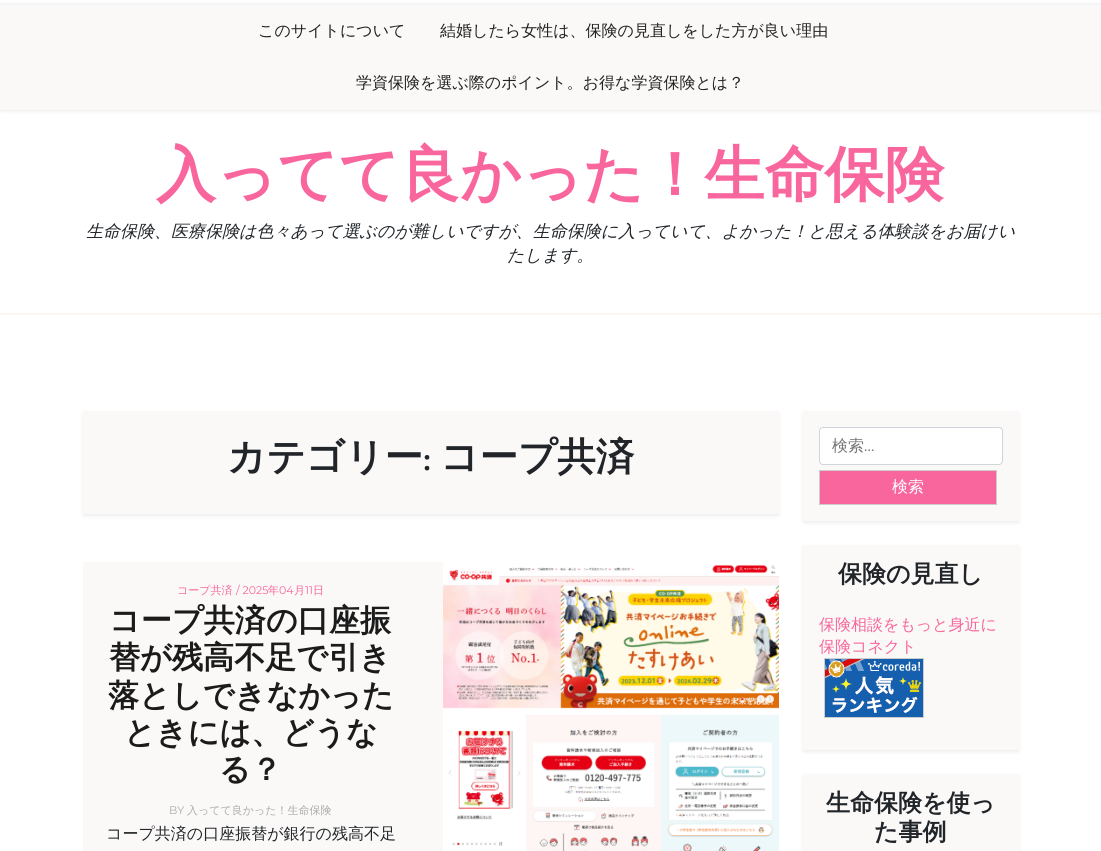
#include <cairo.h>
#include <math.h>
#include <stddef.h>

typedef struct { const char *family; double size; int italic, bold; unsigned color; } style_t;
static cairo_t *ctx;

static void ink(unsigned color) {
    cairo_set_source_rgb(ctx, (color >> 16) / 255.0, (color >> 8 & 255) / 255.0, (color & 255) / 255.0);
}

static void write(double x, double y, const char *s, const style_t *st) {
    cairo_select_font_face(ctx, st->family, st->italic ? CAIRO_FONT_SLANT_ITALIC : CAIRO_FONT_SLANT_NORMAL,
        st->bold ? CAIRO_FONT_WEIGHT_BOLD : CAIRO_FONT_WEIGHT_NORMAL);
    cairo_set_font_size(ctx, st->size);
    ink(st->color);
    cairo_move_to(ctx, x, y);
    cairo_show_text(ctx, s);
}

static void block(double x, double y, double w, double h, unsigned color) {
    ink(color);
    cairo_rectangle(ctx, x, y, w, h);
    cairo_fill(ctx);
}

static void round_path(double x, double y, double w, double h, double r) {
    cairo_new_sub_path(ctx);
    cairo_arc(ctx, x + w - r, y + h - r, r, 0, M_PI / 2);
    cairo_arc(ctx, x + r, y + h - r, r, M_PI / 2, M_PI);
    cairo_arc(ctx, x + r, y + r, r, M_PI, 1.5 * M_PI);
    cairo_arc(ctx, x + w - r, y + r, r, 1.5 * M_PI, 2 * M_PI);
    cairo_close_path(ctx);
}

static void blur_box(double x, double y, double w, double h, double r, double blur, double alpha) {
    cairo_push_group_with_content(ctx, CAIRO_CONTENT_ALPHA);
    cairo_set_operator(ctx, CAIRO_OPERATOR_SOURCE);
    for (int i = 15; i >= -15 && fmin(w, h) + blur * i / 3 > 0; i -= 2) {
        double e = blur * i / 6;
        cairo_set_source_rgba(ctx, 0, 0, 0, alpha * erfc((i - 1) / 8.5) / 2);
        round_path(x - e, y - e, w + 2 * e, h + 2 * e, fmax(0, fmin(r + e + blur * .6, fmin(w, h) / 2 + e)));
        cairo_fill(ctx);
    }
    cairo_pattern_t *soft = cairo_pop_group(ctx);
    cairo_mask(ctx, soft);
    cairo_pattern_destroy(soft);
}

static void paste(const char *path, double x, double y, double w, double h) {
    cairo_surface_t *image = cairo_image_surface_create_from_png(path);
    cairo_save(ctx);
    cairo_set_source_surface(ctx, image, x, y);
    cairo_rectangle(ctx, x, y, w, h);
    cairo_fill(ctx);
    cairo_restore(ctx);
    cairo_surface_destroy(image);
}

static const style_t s1 = {"WenQuanYi Zen Hei Medium", 16, 0, 0, 0x222222};
static const style_t s2 = {"WenQuanYi Zen Hei", 60, 0, 1, 0xf8669d};
static const style_t s3 = {"WenQuanYi Zen Hei Medium", 17, 1, 0, 0x212529};
static const style_t s4 = {"WenQuanYi Zen Hei", 38.5, 0, 1, 0x212529};
static const style_t s5 = {"Cormorant Garamond", 38.5, 0, 1, 0x212529};
static const style_t s6 = {"WenQuanYi Zen Hei Medium", 11, 0, 0, 0xf8669d};
static const style_t s7 = {"Montserrat", 11, 0, 0, 0xf8669d};
static const style_t s8 = {"WenQuanYi Zen Hei", 31.1, 0, 1, 0x1b1b1b};
static const style_t s9 = {"Montserrat", 11, 0, 0, 0xababab};
static const style_t s10 = {"WenQuanYi Zen Hei Medium", 11, 0, 0, 0xababab};
static const style_t s11 = {"WenQuanYi Zen Hei Medium", 16, 0, 0, 0x212529};
static const style_t s12 = {"WenQuanYi Zen Hei Medium", 16, 0, 0, 0x757575};
static const style_t s13 = {"Montserrat", 16, 0, 0, 0x757575};
static const style_t s14 = {"WenQuanYi Zen Hei Medium", 16, 0, 0, 0xffffff};
static const style_t s15 = {"WenQuanYi Zen Hei", 24, 0, 1, 0x212529};
static const style_t s16 = {"WenQuanYi Zen Hei Medium", 16, 0, 0, 0xf8669d};

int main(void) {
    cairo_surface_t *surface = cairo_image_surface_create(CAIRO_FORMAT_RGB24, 1101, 851);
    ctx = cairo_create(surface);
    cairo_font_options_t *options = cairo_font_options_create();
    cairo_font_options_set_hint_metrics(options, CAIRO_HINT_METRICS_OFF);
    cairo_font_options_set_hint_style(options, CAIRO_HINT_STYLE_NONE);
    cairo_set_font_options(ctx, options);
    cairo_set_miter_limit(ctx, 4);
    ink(0xffffff);
    cairo_paint(ctx);
    ink(0x000000);
    blur_box(0, 5, 1101, 105, 0, 2.5, 0.12);
    block(0, 5, 1101, 105, 0xfaf9f7);
    write(258, 36, "このサイトについて", &s1);
    write(440, 36, "結婚したら女性は、保険の見直しをした方が良い理由", &s1);
    write(356, 88, "学資保険を選ぶ際のポイント。お得な学資保険とは？", &s1);
    block(0, 313, 1101, 2, 0xfbf7ef);
    write(156, 195, "入ってて良かった！生命保険", &s2);
    write(86, 237, "生命保険、医療保険は色々あって選ぶのが難しいですが、生命保険に入っていて、よかった！と思える体験談をお届けい", &s3);
    write(507, 261, "たします。", &s3);
    ink(0x000000);
    blur_box(83, 413, 696, 103, 0, 2, 0.07);
    block(83, 411, 696, 103, 0xfaf9f7);
    write(227, 470, "カテゴリー", &s4);
    write(423, 470, ":", &s5);
    write(440, 470, "コープ共済", &s4);
    block(83, 562, 360, 289, 0xfaf9f7);
    write(177, 594, "コープ共済", &s6);
    write(236, 594, "/ 2025", &s7);
    write(268, 594, "年", &s6);
    write(279, 594, "04", &s7);
    write(294, 594, "月", &s6);
    write(305, 594, "11", &s7);
    write(313, 594, "日", &s6);
    write(109, 631, "コープ共済の口座振", &s8);
    write(109, 668, "替が残高不足で引き", &s8);
    write(108, 706, "落としできなかった", &s8);
    write(124, 743, "ときには、どうな", &s8);
    write(219, 780, "る？", &s8);
    write(169, 814, "BY", &s9);
    write(187, 814, "入ってて良かった！生命保険", &s10);
    write(106, 839, "コープ共済の口座振替が銀行の残高不足", &s11);
    paste("pic1.png", 443, 562, 336, 289);
    ink(0x000000);
    blur_box(803, 413, 216, 110, 0, 2, 0.07);
    block(803, 411, 216, 110, 0xfaf9f7);
    ink(0xffffff);
    round_path(819.5, 427.5, 183, 37, 3.5);
    cairo_fill_preserve(ctx);
    ink(0xced4da);
    cairo_set_line_width(ctx, 1);
    cairo_stroke(ctx);
    write(832, 451, "検索", &s12);
    write(864, 451, "…", &s13);
    ink(0xf8669d);
    cairo_rectangle(ctx, 819.5, 470.5, 177, 34);
    cairo_fill_preserve(ctx);
    ink(0xcccccc);
    cairo_stroke(ctx);
    write(892, 492, "検索", &s14);
    ink(0x000000);
    blur_box(803, 547, 216, 205, 0, 2, 0.07);
    block(803, 545, 216, 205, 0xfaf9f7);
    write(838, 582, "保険の見直し", &s15);
    write(819, 630, "保険相談をもっと身近に", &s16);
    write(819, 652, "保険コネクト", &s16);
    paste("pic2.png", 824, 658, 100, 60);
    ink(0x000000);
    blur_box(803, 776, 216, 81, 0, 2, 0.07);
    block(803, 774, 216, 77, 0xfaf9f7);
    write(826, 811, "生命保険を使っ", &s15);
    write(874, 840, "た事例", &s15);
    cairo_surface_write_to_png(surface, "screenshot.png");
    cairo_font_options_destroy(options);
    cairo_destroy(ctx);
    cairo_surface_destroy(surface);
    return 0;
}
